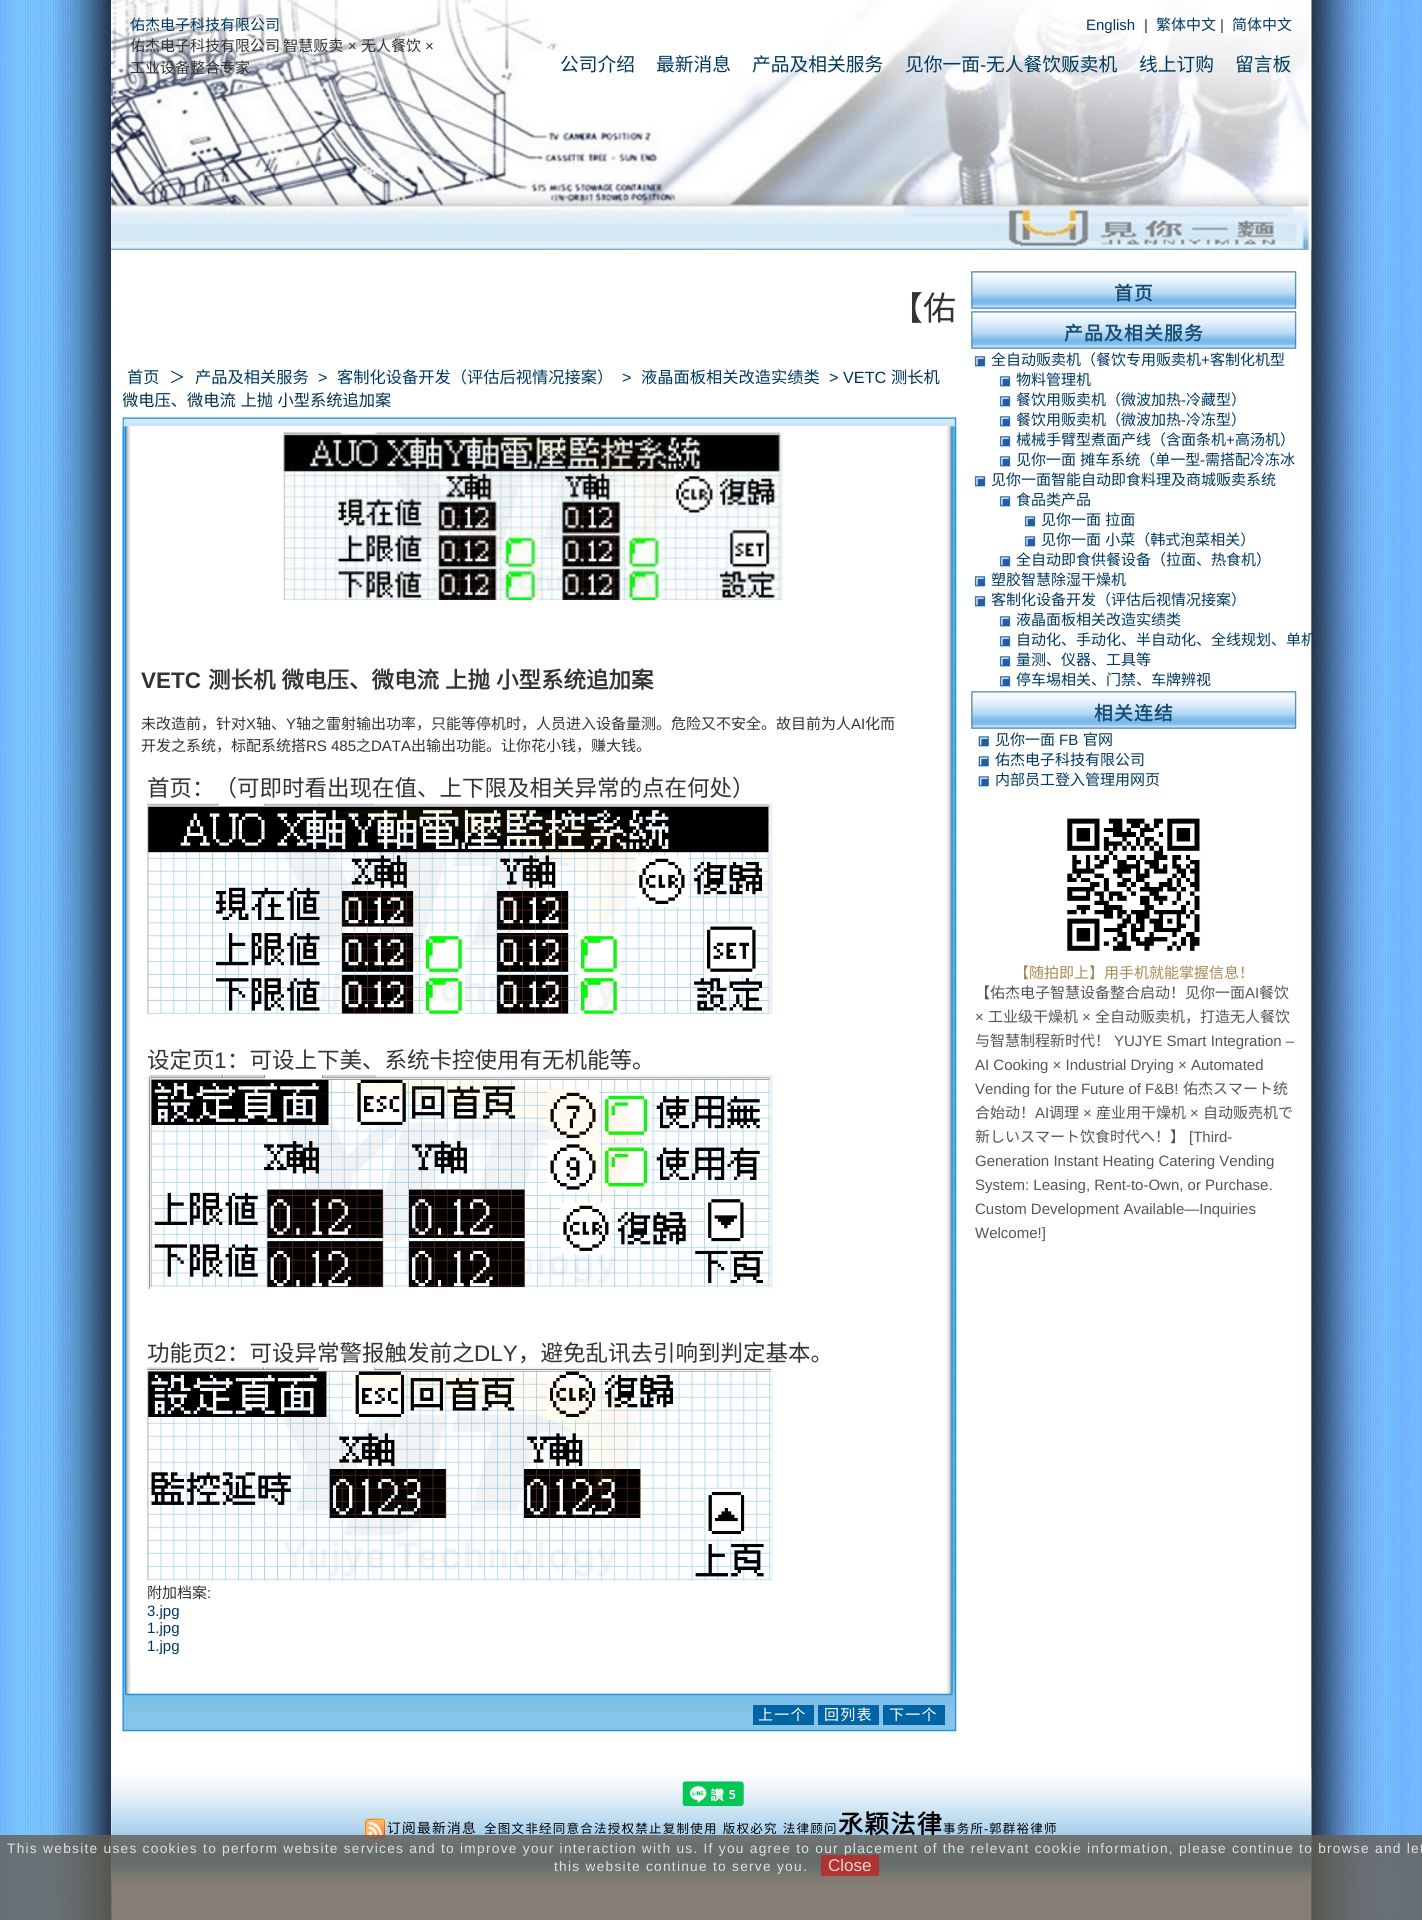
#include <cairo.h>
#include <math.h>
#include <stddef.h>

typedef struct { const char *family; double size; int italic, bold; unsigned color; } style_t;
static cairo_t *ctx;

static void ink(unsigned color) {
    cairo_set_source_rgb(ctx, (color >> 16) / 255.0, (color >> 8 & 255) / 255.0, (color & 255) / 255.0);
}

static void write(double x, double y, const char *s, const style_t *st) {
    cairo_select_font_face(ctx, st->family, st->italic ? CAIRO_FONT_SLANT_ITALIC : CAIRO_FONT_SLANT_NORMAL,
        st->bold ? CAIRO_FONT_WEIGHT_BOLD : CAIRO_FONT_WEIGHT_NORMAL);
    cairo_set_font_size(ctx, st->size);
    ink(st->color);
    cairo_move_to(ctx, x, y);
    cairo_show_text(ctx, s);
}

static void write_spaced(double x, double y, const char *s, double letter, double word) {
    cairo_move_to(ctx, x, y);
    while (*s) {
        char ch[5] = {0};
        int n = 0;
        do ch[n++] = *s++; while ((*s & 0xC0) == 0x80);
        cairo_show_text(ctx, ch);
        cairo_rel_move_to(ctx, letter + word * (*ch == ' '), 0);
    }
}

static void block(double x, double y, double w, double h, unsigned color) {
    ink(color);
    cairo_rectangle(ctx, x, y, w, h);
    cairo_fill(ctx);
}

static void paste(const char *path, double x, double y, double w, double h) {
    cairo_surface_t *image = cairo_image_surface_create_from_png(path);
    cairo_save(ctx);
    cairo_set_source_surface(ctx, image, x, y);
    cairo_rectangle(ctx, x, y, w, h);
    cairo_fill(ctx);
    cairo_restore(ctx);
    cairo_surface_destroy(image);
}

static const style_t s1 = {"Noto Sans CJK SC", 15, 0, 0, 0x003960};
static const style_t s2 = {"Noto Sans CJK SC", 15, 0, 0, 0x333333};
static const style_t s3 = {"Liberation Sans", 15, 0, 0, 0x333333};
static const style_t s4 = {"Liberation Sans", 15, 0, 0, 0x003960};
static const style_t s5 = {"Noto Sans CJK SC", 18.75, 0, 0, 0x003960};
static const style_t s6 = {"Liberation Sans", 18.75, 0, 0, 0x003960};
static const style_t s7 = {"Noto Sans CJK SC", 33, 0, 0, 0x333333};
static const style_t s8 = {"Noto Sans CJK SC", 16.25, 0, 0, 0x003960};
static const style_t s9 = {"Noto Sans CJK SC", 16.25, 0, 0, 0x003152};
static const style_t s10 = {"Liberation Sans", 16.25, 0, 0, 0x003152};
static const style_t s11 = {"Liberation Sans", 22.5, 0, 1, 0x333333};
static const style_t s12 = {"Noto Sans CJK SC", 22.5, 0, 0, 0x333333};
static const style_t s13 = {"Liberation Sans", 22.5, 0, 0, 0x333333};
static const style_t s14 = {"Noto Sans CJK SC", 15, 0, 0, 0xaa8855};
static const style_t s15 = {"Noto Sans CJK SC", 15, 0, 0, 0x555555};
static const style_t s16 = {"Liberation Sans", 15, 0, 0, 0x555555};
static const style_t s17 = {"Liberation Sans", 17, 0, 0, 0xefd6d6};

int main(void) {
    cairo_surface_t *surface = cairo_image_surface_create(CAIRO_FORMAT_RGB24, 1422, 1920);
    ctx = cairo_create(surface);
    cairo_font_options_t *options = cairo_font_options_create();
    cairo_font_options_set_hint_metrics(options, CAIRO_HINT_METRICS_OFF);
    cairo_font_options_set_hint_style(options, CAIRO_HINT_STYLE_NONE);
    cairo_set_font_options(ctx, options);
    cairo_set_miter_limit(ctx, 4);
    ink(0xffffff);
    cairo_paint(ctx);
    paste("pic1.png", 0, 0, 1422, 1920);
    block(111, 0, 1, 1881, 0xffffff);
    paste("pic2.png", 111, 0, 1201, 250);
    write(130, 30, "佑杰电子科技有限公司", &s1);
    write(130, 51, "佑杰电子科技有限公司 智慧贩卖", &s2);
    write(348, 51, "×", &s3);
    write(361, 51, "无人餐饮", &s2);
    write(425, 51, "×", &s3);
    write(130, 73, "工业设备整合专家", &s2);
    write(1086, 30, "English", &s4);
    write(1144, 30, "|", &s3);
    write(1156, 30, "繁体中文", &s1);
    write(1220, 30, "|", &s3);
    write(1232, 30, "简体中文", &s1);
    write(560, 71, "公司介绍", &s5);
    write(656, 71, "最新消息", &s5);
    write(752, 71, "产品及相关服务", &s5);
    write(905, 71, "见你一面", &s5);
    write(980, 71, "-", &s6);
    write(986, 71, "无人餐饮贩卖机", &s5);
    write(1139, 71, "线上订购", &s5);
    write(1235, 71, "留言板", &s5);
    write(890, 320, "【佑", &s7);
    write(127, 383, "首页", &s8);
    write(169, 383, "＞", &s9);
    write(195, 383, "产品及相关服务", &s8);
    write(318, 383, ">", &s10);
    write(337, 383, "客制化设备开发（评估后视情况接案）", &s8);
    write(622, 383, ">", &s10);
    write(641, 383, "液晶面板相关改造实绩类", &s8);
    write(829, 383, "> VETC", &s10);
    write(891, 383, "测长机", &s9);
    cairo_save(ctx);
    cairo_rectangle(ctx, 123, 355, 835, 71);
    cairo_clip(ctx);
    write_spaced(122, 406, "微电压、微电流 上抛 小型系统追加案", 0, 1);
    cairo_restore(ctx);
    paste("pic3.png", 122, 417, 835, 10);
    paste("pic4.png", 122, 426, 835, 1239);
    paste("pic5.png", 283, 432, 500, 168);
    write(141, 688, "VETC", &s11);
    cairo_select_font_face(ctx, "Noto Sans CJK SC", CAIRO_FONT_SLANT_NORMAL, CAIRO_FONT_WEIGHT_BOLD);
    write_spaced(208, 688, "测长机 微电压、微电流 上抛 小型系统追加案", 0, 1);
    write(141, 729, "未改造前，针对", &s2);
    write(246, 729, "X", &s3);
    write(256, 729, "轴、", &s2);
    write(286, 729, "Y", &s3);
    write(296, 729, "轴之雷射输出功率，只能等停机时，人员进入设备量测。危险又不安全。故目前为人", &s2);
    write(851, 729, "AI", &s3);
    write(865, 729, "化而", &s2);
    write(141, 751, "开发之系统，标配系统搭", &s2);
    write(306, 751, "RS 485", &s3);
    write(356, 751, "之", &s2);
    write(371, 751, "DATA", &s3);
    write(411, 751, "出输出功能。让你花小钱，赚大钱。", &s2);
    write(147, 796, "首页：（可即时看出现在值、上下限及相关异常的点在何处）", &s12);
    paste("pic6.png", 147, 803, 626, 211);
    write(147, 1068, "设定页", &s12);
    write(214, 1068, "1", &s13);
    write(227, 1068, "：可设上下美、系统卡控使用有无机能等。", &s12);
    paste("pic7.png", 147, 1075, 626, 214);
    write(147, 1361, "功能页", &s12);
    write(214, 1361, "2", &s13);
    write(227, 1361, "：可设异常警报触发前之", &s12);
    write(474, 1361, "DLY", &s13);
    write(518, 1361, "，避免乱讯去引响到判定基本。", &s12);
    paste("pic8.png", 147, 1367, 626, 215);
    write(147, 1598, "附加档案", &s2);
    write(207, 1598, ":", &s3);
    write(147, 1616, "3.jpg", &s4);
    write(147, 1633, "1.jpg", &s4);
    write(147, 1651, "1.jpg", &s4);
    paste("pic9.png", 122, 1665, 835, 67);
    block(753, 1705, 61, 20, 0x0064a5);
    cairo_select_font_face(ctx, "Noto Sans CJK SC", CAIRO_FONT_SLANT_NORMAL, CAIRO_FONT_WEIGHT_NORMAL);
    ink(0xffffff);
    write_spaced(758, 1720, "上一个", 1.25, 0);
    block(818, 1705, 61, 20, 0x0064a5);
    ink(0xffffff);
    write_spaced(824, 1720, "回列表", 1.25, 0);
    block(883, 1705, 62, 20, 0x0064a5);
    ink(0xffffff);
    write_spaced(889, 1720, "下一个", 1.25, 0);
    paste("pic10.png", 971, 271, 326, 38);
    cairo_select_font_face(ctx, "Noto Sans CJK SC", CAIRO_FONT_SLANT_NORMAL, CAIRO_FONT_WEIGHT_BOLD);
    cairo_set_font_size(ctx, 18.75);
    ink(0x164e75);
    write_spaced(1114, 300, "首页", 1.25, 0);
    paste("pic10.png", 971, 311, 326, 38);
    write_spaced(1064, 340, "产品及相关服务", 1.25, 0);
    paste("pic11.png", 974, 356, 12, 11);
    write(991, 365, "全自动贩卖机（餐饮专用贩卖机", &s1);
    write(1201, 365, "+", &s4);
    write(1210, 365, "客制化机型", &s1);
    paste("pic11.png", 999, 376, 12, 11);
    write(1016, 385, "物料管理机", &s1);
    paste("pic11.png", 999, 396, 12, 11);
    write(1016, 405, "餐饮用贩卖机（微波加热", &s1);
    write(1181, 405, "-", &s4);
    write(1186, 405, "冷藏型）", &s1);
    paste("pic11.png", 999, 416, 12, 11);
    write(1016, 425, "餐饮用贩卖机（微波加热", &s1);
    write(1181, 425, "-", &s4);
    write(1186, 425, "冷冻型）", &s1);
    paste("pic11.png", 999, 436, 12, 11);
    write(1016, 445, "械械手臂型煮面产线（含面条机", &s1);
    write(1226, 445, "+", &s4);
    write(1235, 445, "高汤机）", &s1);
    paste("pic11.png", 999, 456, 12, 11);
    write_spaced(1016, 465, "见你一面 摊车系统（单一型", 0, 1);
    write(1200, 465, "-", &s4);
    write(1205, 465, "需搭配冷冻冰", &s1);
    paste("pic11.png", 974, 476, 12, 11);
    write(991, 485, "见你一面智能自动即食料理及商城贩卖系统", &s1);
    paste("pic11.png", 999, 496, 12, 11);
    write(1016, 505, "食品类产品", &s1);
    paste("pic12.png", 1024, 516, 12, 11);
    write_spaced(1041, 525, "见你一面 拉面", 0, 1);
    paste("pic11.png", 1024, 536, 12, 11);
    write_spaced(1041, 545, "见你一面 小菜（韩式泡菜相关）", 0, 1);
    paste("pic11.png", 999, 556, 12, 11);
    write(1016, 565, "全自动即食供餐设备（拉面、热食机）", &s1);
    paste("pic11.png", 974, 576, 12, 11);
    write(991, 585, "塑胶智慧除湿干燥机", &s1);
    paste("pic11.png", 974, 596, 12, 11);
    write(991, 605, "客制化设备开发（评估后视情况接案）", &s1);
    paste("pic11.png", 999, 616, 12, 11);
    write(1016, 625, "液晶面板相关改造实绩类", &s1);
    paste("pic11.png", 999, 636, 12, 11);
    write(1016, 645, "自动化、手动化、半自动化、全线规划、单机", &s1);
    paste("pic11.png", 999, 656, 12, 11);
    write(1016, 665, "量测、仪器、工具等", &s1);
    paste("pic11.png", 999, 676, 12, 11);
    write(1016, 685, "停车埸相关、门禁、车牌辨视", &s1);
    paste("pic10.png", 971, 691, 326, 38);
    cairo_select_font_face(ctx, "Noto Sans CJK SC", CAIRO_FONT_SLANT_NORMAL, CAIRO_FONT_WEIGHT_BOLD);
    cairo_set_font_size(ctx, 18.75);
    ink(0x164e75);
    write_spaced(1094, 720, "相关连结", 1.25, 0);
    paste("pic13.png", 978, 736, 11, 11);
    write(995, 745, "见你一面", &s1);
    write(1059, 745, "FB", &s4);
    write(1083, 745, "官网", &s1);
    paste("pic13.png", 978, 756, 11, 11);
    write(995, 765, "佑杰电子科技有限公司", &s1);
    paste("pic13.png", 978, 776, 11, 11);
    write(995, 785, "内部员工登入管理用网页", &s1);
    paste("pic14.png", 1067, 818, 134, 134);
    write(1014, 978, "【随拍即上】用手机就能掌握信息！", &s14);
    write(975, 998, "【佑杰电子智慧设备整合启动！见你一面", &s15);
    write(1245, 998, "AI", &s16);
    write(1259, 998, "餐饮", &s15);
    write(975, 1022, "×", &s16);
    write(988, 1022, "工业级干燥机", &s15);
    write(1082, 1022, "×", &s16);
    write(1095, 1022, "全自动贩卖机，打造无人餐饮", &s15);
    write(975, 1046, "与智慧制程新时代！", &s15);
    write(1114, 1046, "YUJYE Smart Integration –", &s16);
    write(975, 1070, "AI Cooking × Industrial Drying × Automated", &s16);
    write(975, 1094, "Vending for the Future of F&B!", &s16);
    write(1183, 1094, "佑杰スマート统", &s15);
    write(975, 1118, "合始动！", &s15);
    write(1035, 1118, "AI", &s16);
    write(1049, 1118, "调理", &s15);
    write(1083, 1118, "×", &s16);
    write(1096, 1118, "産业用干燥机", &s15);
    write(1190, 1118, "×", &s16);
    write(1203, 1118, "自动贩売机で", &s15);
    write(975, 1142, "新しいスマート饮食时代へ！】", &s15);
    write(1189, 1142, "[Third-", &s16);
    write(975, 1166, "Generation Instant Heating Catering Vending", &s16);
    write(975, 1190, "System: Leasing, Rent-to-Own, or Purchase.", &s16);
    write(975, 1214, "Custom Development Available—Inquiries", &s16);
    write(975, 1238, "Welcome!]", &s16);
    paste("pic15.png", 111, 1768, 1201, 114);
    paste("pic16.png", 682, 1781, 62, 26);
    paste("pic17.png", 365, 1818, 20, 21);
    cairo_select_font_face(ctx, "Noto Sans CJK SC", CAIRO_FONT_SLANT_NORMAL, CAIRO_FONT_WEIGHT_NORMAL);
    cairo_set_font_size(ctx, 13.75);
    ink(0x000000);
    write_spaced(387, 1833, "订阅最新消息", 1.25, 0);
    cairo_set_font_size(ctx, 12.5);
    write_spaced(484, 1833, "全图文非经同意合法授权禁止复制使用 版权必究 法律顾问", 1.25, 1);
    cairo_select_font_face(ctx, "Noto Sans CJK SC", CAIRO_FONT_SLANT_NORMAL, CAIRO_FONT_WEIGHT_BOLD);
    cairo_set_font_size(ctx, 25);
    write_spaced(838, 1833, "氶颖法律", 1.25, 0);
    cairo_select_font_face(ctx, "Noto Sans CJK SC", CAIRO_FONT_SLANT_NORMAL, CAIRO_FONT_WEIGHT_NORMAL);
    cairo_set_font_size(ctx, 12.5);
    write_spaced(943, 1833, "事务所", 1.25, 0);
    cairo_select_font_face(ctx, "Liberation Sans", CAIRO_FONT_SLANT_NORMAL, CAIRO_FONT_WEIGHT_NORMAL);
    write_spaced(984, 1833, "-", 1.25, 0);
    cairo_select_font_face(ctx, "Noto Sans CJK SC", CAIRO_FONT_SLANT_NORMAL, CAIRO_FONT_WEIGHT_NORMAL);
    write_spaced(989, 1833, "郭群裕律师", 1.25, 0);
    cairo_set_source_rgba(ctx, 0.4, 0.369, 0.325, 0.8);
    cairo_rectangle(ctx, 0, 1835, 1422, 85);
    cairo_fill(ctx);
    cairo_select_font_face(ctx, "Liberation Sans", CAIRO_FONT_SLANT_NORMAL, CAIRO_FONT_WEIGHT_NORMAL);
    cairo_set_font_size(ctx, 13.75);
    ink(0xe0e1e1);
    write_spaced(7, 1853, "This website uses cookies to perform website services and to improve your interaction with us. If you agree to our placement of the relevant cookie information, please continue to browse and let", 1.25, 0);
    write_spaced(554, 1871, "this website continue to serve you.", 1.25, 0);
    cairo_set_source_rgba(ctx, 0.753, 0.145, 0.145, 0.8);
    cairo_rectangle(ctx, 821, 1855, 58, 21);
    cairo_fill(ctx);
    write(828, 1871, "Close", &s17);
    cairo_surface_write_to_png(surface, "screenshot.png");
    cairo_font_options_destroy(options);
    cairo_destroy(ctx);
    cairo_surface_destroy(surface);
    return 0;
}
